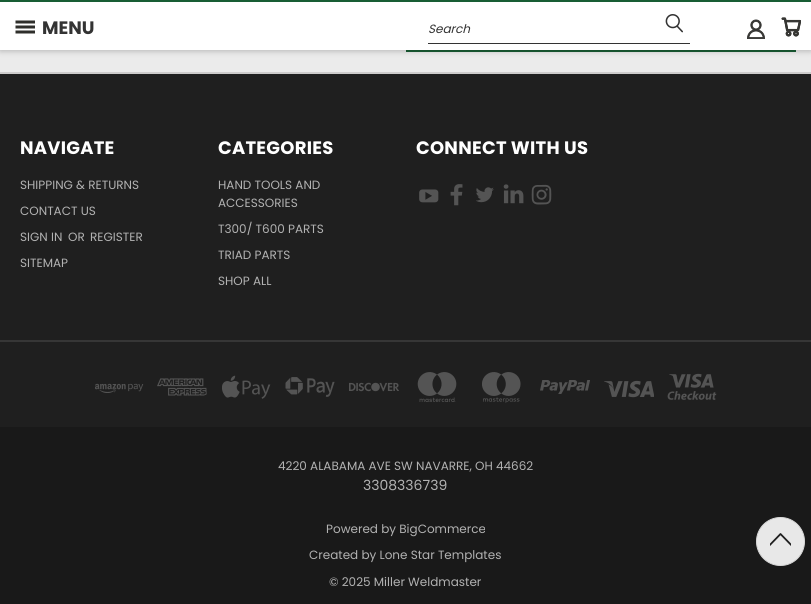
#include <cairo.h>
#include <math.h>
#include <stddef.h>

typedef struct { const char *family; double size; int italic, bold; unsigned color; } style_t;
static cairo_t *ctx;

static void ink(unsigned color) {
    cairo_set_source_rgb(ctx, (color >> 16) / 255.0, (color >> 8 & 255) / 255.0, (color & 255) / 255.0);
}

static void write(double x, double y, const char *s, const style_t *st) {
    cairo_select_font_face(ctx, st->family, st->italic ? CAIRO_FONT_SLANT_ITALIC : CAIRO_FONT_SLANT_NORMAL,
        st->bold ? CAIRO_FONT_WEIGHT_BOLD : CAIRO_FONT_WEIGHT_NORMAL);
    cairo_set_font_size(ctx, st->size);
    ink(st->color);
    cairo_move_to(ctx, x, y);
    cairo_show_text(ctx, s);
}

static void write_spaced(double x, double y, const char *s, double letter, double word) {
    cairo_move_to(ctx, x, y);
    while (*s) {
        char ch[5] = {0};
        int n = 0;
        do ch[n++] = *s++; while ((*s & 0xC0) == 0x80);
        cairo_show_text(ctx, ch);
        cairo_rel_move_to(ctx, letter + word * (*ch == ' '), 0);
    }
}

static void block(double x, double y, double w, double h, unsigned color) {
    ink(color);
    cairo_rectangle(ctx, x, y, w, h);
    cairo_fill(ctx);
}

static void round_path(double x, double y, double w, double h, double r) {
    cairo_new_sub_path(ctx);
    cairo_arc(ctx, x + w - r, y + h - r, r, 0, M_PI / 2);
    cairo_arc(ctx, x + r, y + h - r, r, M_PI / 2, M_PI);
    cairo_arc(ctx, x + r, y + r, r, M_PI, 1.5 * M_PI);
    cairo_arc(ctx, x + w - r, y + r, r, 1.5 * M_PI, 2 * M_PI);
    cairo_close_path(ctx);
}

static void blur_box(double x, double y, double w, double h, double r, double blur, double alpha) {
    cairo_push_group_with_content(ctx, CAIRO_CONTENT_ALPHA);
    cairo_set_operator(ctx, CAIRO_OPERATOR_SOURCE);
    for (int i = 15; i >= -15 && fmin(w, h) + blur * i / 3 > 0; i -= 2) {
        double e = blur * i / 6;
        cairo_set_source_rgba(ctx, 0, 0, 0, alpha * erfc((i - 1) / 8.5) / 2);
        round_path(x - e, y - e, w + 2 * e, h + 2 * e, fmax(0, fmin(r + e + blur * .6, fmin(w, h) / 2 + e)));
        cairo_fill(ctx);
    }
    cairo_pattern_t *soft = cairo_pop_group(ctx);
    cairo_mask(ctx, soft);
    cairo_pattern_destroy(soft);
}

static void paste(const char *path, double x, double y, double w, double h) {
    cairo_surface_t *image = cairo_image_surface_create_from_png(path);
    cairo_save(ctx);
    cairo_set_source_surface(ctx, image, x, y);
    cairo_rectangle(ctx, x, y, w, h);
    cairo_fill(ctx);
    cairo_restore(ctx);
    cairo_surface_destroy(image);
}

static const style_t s1 = {"Poppins", 18, 0, 1, 0x333333};
static const style_t s2 = {"Poppins", 12, 1, 0, 0x333333};
static const style_t s3 = {"Poppins", 12, 0, 0, 0xb2b2b2};
static const style_t s4 = {"Poppins", 14, 0, 0, 0xb2b2b2};

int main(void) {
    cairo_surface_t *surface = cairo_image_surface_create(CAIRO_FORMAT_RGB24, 811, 604);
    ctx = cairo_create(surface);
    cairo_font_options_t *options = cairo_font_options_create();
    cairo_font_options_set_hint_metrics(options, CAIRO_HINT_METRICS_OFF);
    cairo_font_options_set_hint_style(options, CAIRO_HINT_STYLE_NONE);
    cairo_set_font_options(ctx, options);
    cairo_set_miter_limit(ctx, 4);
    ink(0xebebeb);
    cairo_paint(ctx);
    block(406, 50, 390, 2, 0x185d34);
    ink(0x000000);
    blur_box(0, 0, 811, 50, 0, 3.5, 0.3);
    block(0, 2, 811, 48, 0xffffff);
    block(0, 0, 811, 2, 0x185d34);
    paste("pic1.png", 15, 20, 20, 14);
    write(42, 34, "MENU", &s1);
    block(428, 43, 262, 1, 0x333333);
    write(428, 33, "Search", &s2);
    paste("pic2.png", 665, 14, 18, 19);
    paste("pic3.png", 747, 19, 18, 20);
    paste("pic4.png", 781, 17, 20, 20);
    block(0, 74, 811, 353, 0x1f1f1f);
    block(0, 72, 811, 2, 0xcdcccc);
    cairo_select_font_face(ctx, "Poppins", CAIRO_FONT_SLANT_NORMAL, CAIRO_FONT_WEIGHT_BOLD);
    cairo_set_font_size(ctx, 18);
    ink(0xffffff);
    write_spaced(20, 154, "NAVIGATE", 0.25, 0);
    write(20, 189, "SHIPPING & RETURNS", &s3);
    write(20, 215, "CONTACT US", &s3);
    write(20, 241, "SIGN IN", &s3);
    write(68, 241, "OR", &s3);
    write(90, 241, "REGISTER", &s3);
    write(20, 267, "SITEMAP", &s3);
    cairo_select_font_face(ctx, "Poppins", CAIRO_FONT_SLANT_NORMAL, CAIRO_FONT_WEIGHT_BOLD);
    cairo_set_font_size(ctx, 18);
    ink(0xffffff);
    write_spaced(218, 154, "CATEGORIES", 0.25, 0);
    write(218, 189, "HAND TOOLS AND", &s3);
    write(218, 207, "ACCESSORIES", &s3);
    write(218, 233, "T300/ T600 PARTS", &s3);
    write(218, 259, "TRIAD PARTS", &s3);
    write(218, 285, "SHOP ALL", &s3);
    cairo_select_font_face(ctx, "Poppins", CAIRO_FONT_SLANT_NORMAL, CAIRO_FONT_WEIGHT_BOLD);
    cairo_set_font_size(ctx, 18);
    ink(0xffffff);
    write_spaced(416, 154, "CONNECT WITH US", 0.25, 0);
    paste("pic5.png", 419, 189, 20, 14);
    paste("pic6.png", 450, 184, 13, 22);
    paste("pic7.png", 476, 187, 18, 16);
    paste("pic8.png", 503, 184, 21, 20);
    paste("pic9.png", 531, 184, 21, 21);
    block(0, 340, 811, 2, 0x363636);
    paste("pic10.png", 95, 383, 49, 10);
    paste("pic11.png", 157, 378, 50, 18);
    paste("pic12.png", 222, 375, 49, 24);
    paste("pic13.png", 285, 377, 50, 20);
    paste("pic14.png", 349, 382, 50, 10);
    paste("pic15.png", 417, 372, 40, 30);
    paste("pic16.png", 482, 372, 39, 31);
    paste("pic17.png", 540, 380, 50, 14);
    paste("pic18.png", 604, 380, 50, 18);
    paste("pic19.png", 667, 373, 50, 27);
    block(0, 427, 811, 177, 0x191919);
    write(278, 470, "4220 ALABAMA AVE SW NAVARRE, OH 44662", &s3);
    write(363, 490, "3308336739", &s4);
    write(326, 533, "Powered by BigCommerce", &s3);
    write(309, 559, "Created by Lone Star Templates", &s3);
    write(329, 586, "© 2025 Miller Weldmaster", &s3);
    ink(0xe8e8e8);
    cairo_new_path(ctx);
    cairo_arc(ctx, 780.5, 541.5, 24, 0, 2 * M_PI);
    cairo_fill_preserve(ctx);
    ink(0xd7d7d7);
    cairo_set_line_width(ctx, 1);
    cairo_stroke(ctx);
    cairo_save(ctx);
    cairo_new_path(ctx);
    cairo_move_to(ctx, 791, 532.5);
    cairo_line_to(ctx, 791, 553.5);
    cairo_line_to(ctx, 770, 553.5);
    cairo_line_to(ctx, 770, 532.5);
    cairo_close_path(ctx);
    cairo_clip(ctx);
    cairo_new_path(ctx);
    cairo_move_to(ctx, 798, 552);
    cairo_line_to(ctx, 780.5, 534);
    cairo_line_to(ctx, 763, 552);
    ink(0x1f1f1f);
    cairo_set_line_width(ctx, 1.8);
    cairo_set_line_cap(ctx, CAIRO_LINE_CAP_ROUND);
    cairo_set_line_join(ctx, CAIRO_LINE_JOIN_ROUND);
    cairo_stroke(ctx);
    cairo_restore(ctx);
    cairo_surface_write_to_png(surface, "screenshot.png");
    cairo_font_options_destroy(options);
    cairo_destroy(ctx);
    cairo_surface_destroy(surface);
    return 0;
}
